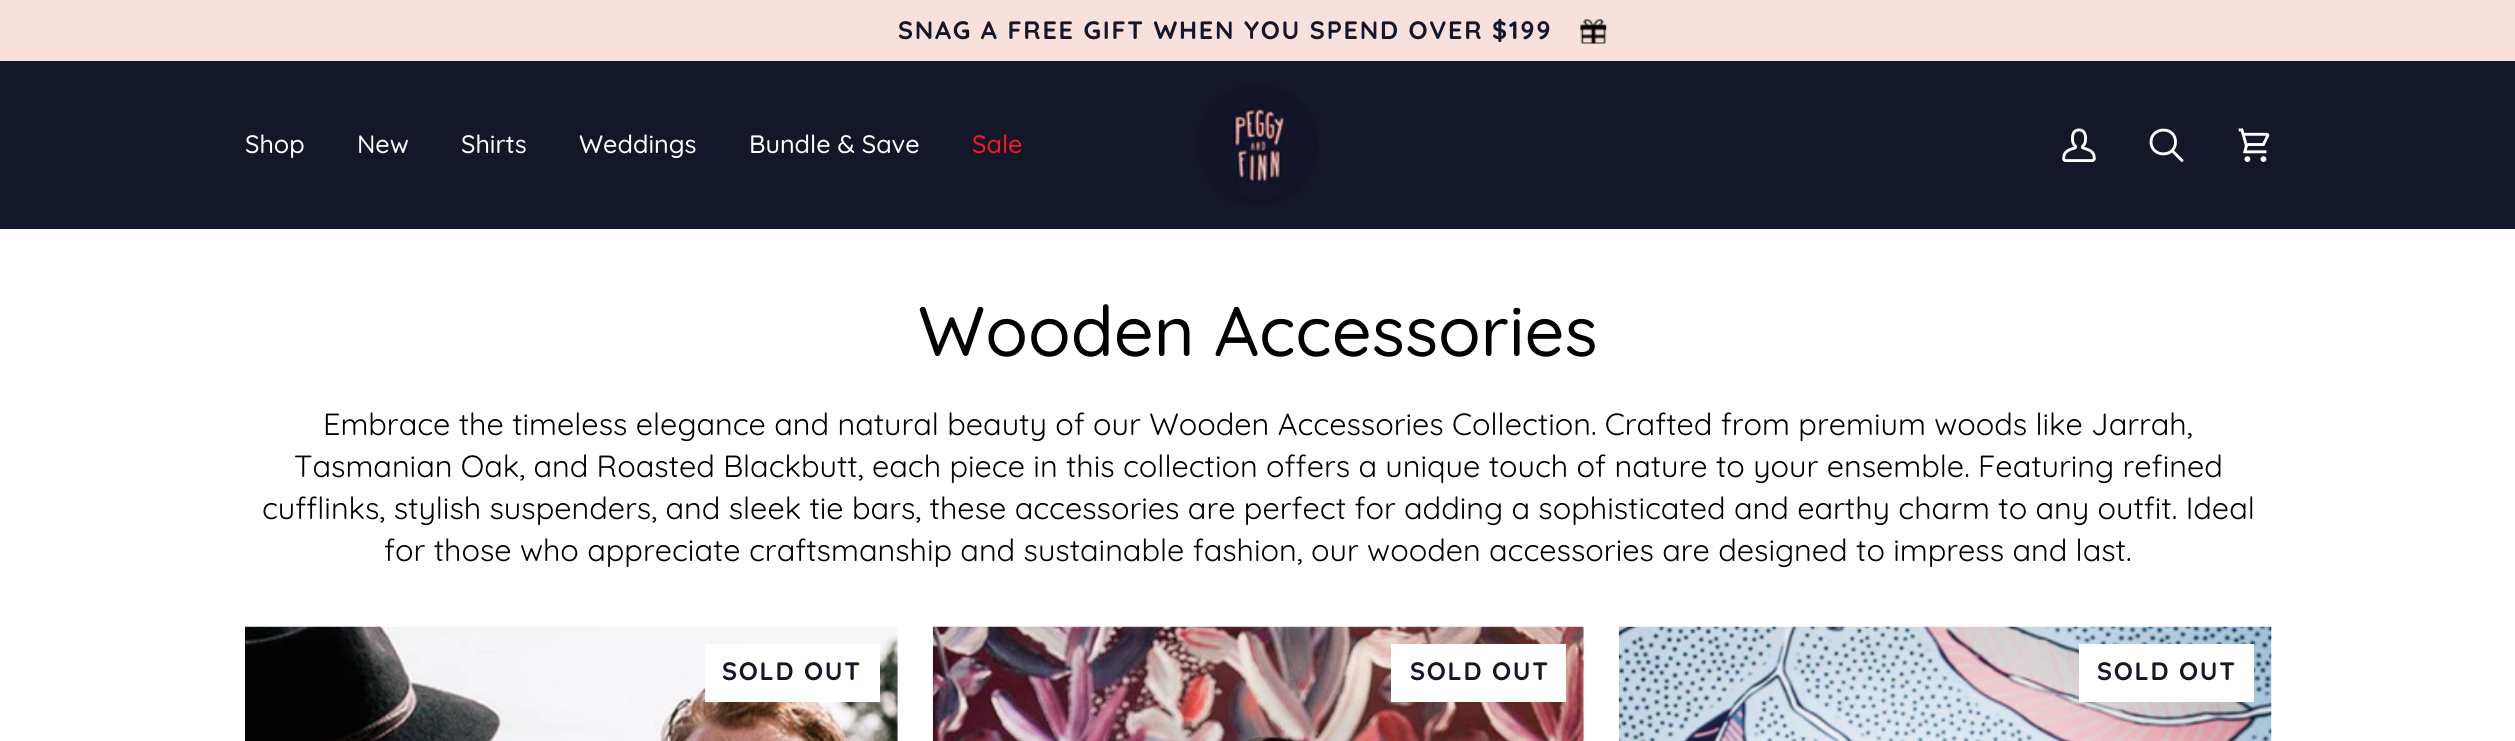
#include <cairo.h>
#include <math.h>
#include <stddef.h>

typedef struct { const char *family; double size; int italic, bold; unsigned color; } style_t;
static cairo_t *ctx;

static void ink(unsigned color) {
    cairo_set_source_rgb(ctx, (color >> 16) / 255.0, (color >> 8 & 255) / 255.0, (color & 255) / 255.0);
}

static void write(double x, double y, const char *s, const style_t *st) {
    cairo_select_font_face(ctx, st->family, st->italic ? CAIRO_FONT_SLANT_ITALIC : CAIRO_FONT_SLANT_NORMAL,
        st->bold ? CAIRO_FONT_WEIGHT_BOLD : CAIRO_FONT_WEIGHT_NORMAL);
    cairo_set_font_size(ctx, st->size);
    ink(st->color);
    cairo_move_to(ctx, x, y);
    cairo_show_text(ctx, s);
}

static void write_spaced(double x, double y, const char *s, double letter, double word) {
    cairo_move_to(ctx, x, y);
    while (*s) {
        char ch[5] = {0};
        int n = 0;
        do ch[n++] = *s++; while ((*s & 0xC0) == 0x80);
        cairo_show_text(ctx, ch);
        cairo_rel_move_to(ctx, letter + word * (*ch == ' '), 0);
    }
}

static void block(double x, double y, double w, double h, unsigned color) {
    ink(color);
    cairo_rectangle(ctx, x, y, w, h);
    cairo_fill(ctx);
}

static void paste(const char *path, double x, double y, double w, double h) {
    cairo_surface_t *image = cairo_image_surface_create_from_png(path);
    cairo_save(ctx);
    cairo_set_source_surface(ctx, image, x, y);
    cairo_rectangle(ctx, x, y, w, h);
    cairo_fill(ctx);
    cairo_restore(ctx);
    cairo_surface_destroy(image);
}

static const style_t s1 = {"Quicksand Medium", 25.15, 0, 0, 0xffffff};
static const style_t s2 = {"Quicksand Medium", 25.15, 0, 0, 0xfd161c};
static const style_t s3 = {"Quicksand Medium", 70, 0, 0, 0x000000};
static const style_t s4 = {"Quicksand", 30.62, 0, 0, 0x000000};

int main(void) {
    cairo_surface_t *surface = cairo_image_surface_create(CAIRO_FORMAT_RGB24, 2515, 741);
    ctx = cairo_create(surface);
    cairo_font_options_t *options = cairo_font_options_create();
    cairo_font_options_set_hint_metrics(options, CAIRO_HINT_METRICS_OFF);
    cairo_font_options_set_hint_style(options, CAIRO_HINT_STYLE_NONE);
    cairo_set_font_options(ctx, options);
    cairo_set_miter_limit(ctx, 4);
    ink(0xffffff);
    cairo_paint(ctx);
    block(0, 0, 2515, 61, 0xf8e0dd);
    cairo_select_font_face(ctx, "Quicksand", CAIRO_FONT_SLANT_NORMAL, CAIRO_FONT_WEIGHT_BOLD);
    cairo_set_font_size(ctx, 25.15);
    ink(0x14172a);
    write_spaced(898, 39, "SNAG A FREE GIFT WHEN YOU SPEND OVER $199", 1.75, 0);
    paste("pic1.png", 1580, 19, 27, 25);
    block(0, 61, 2515, 168, 0x14172a);
    write(245, 153, "Shop", &s1);
    write(357, 153, "New", &s1);
    write(461, 153, "Shirts", &s1);
    write(579, 153, "Weddings", &s1);
    write(749, 153, "Bundle & Save", &s1);
    write(972, 153, "Sale", &s2);
    paste("pic2.png", 1197, 84, 122, 122);
    paste("pic3.png", 2062, 128, 34, 34);
    cairo_new_path(ctx);
    cairo_move_to(ctx, 2175.5, 142);
    cairo_curve_to(ctx, 2175.5, 157.5, 2152, 158, 2151, 142.5);
    cairo_curve_to(ctx, 2150.5, 126.5, 2175.5, 125.5, 2175.5, 142);
    cairo_close_path(ctx);
    cairo_move_to(ctx, 2182, 160.5);
    cairo_line_to(ctx, 2172, 150.5);
    cairo_close_path(ctx);
    ink(0xffffff);
    cairo_set_line_width(ctx, 2.9);
    cairo_set_line_cap(ctx, CAIRO_LINE_CAP_ROUND);
    cairo_set_line_join(ctx, CAIRO_LINE_JOIN_ROUND);
    cairo_stroke(ctx);
    paste("pic4.png", 2238, 128, 32, 34);
    write(918, 356, "Wooden Accessories", &s3);
    write(323, 435, "Embrace the timeless elegance and natural beauty of our Wooden Accessories Collection. Crafted from premium woods like Jarrah,", &s4);
    write(294, 477, "Tasmanian Oak, and Roasted Blackbutt, each piece in this collection offers a unique touch of nature to your ensemble. Featuring refined", &s4);
    write(262, 519, "cufflinks, stylish suspenders, and sleek tie bars, these accessories are perfect for adding a sophisticated and earthy charm to any outfit. Ideal", &s4);
    write(384, 561, "for those who appreciate craftsmanship and sustainable fashion, our wooden accessories are designed to impress and last.", &s4);
    paste("pic5.png", 245, 626, 653, 115);
    block(705, 644, 175, 58, 0xffffff);
    cairo_select_font_face(ctx, "Quicksand", CAIRO_FONT_SLANT_NORMAL, CAIRO_FONT_WEIGHT_BOLD);
    cairo_set_font_size(ctx, 25.15);
    ink(0x14172a);
    write_spaced(722, 680, "SOLD OUT", 1.75, 0);
    paste("pic6.png", 932, 626, 652, 115);
    block(1391, 644, 175, 58, 0xffffff);
    ink(0x14172a);
    write_spaced(1410, 680, "SOLD OUT", 1.75, 0);
    paste("pic7.png", 1618, 626, 654, 115);
    block(2079, 644, 175, 58, 0xffffff);
    ink(0x14172a);
    write_spaced(2097, 680, "SOLD OUT", 1.75, 0);
    cairo_surface_write_to_png(surface, "screenshot.png");
    cairo_font_options_destroy(options);
    cairo_destroy(ctx);
    cairo_surface_destroy(surface);
    return 0;
}
